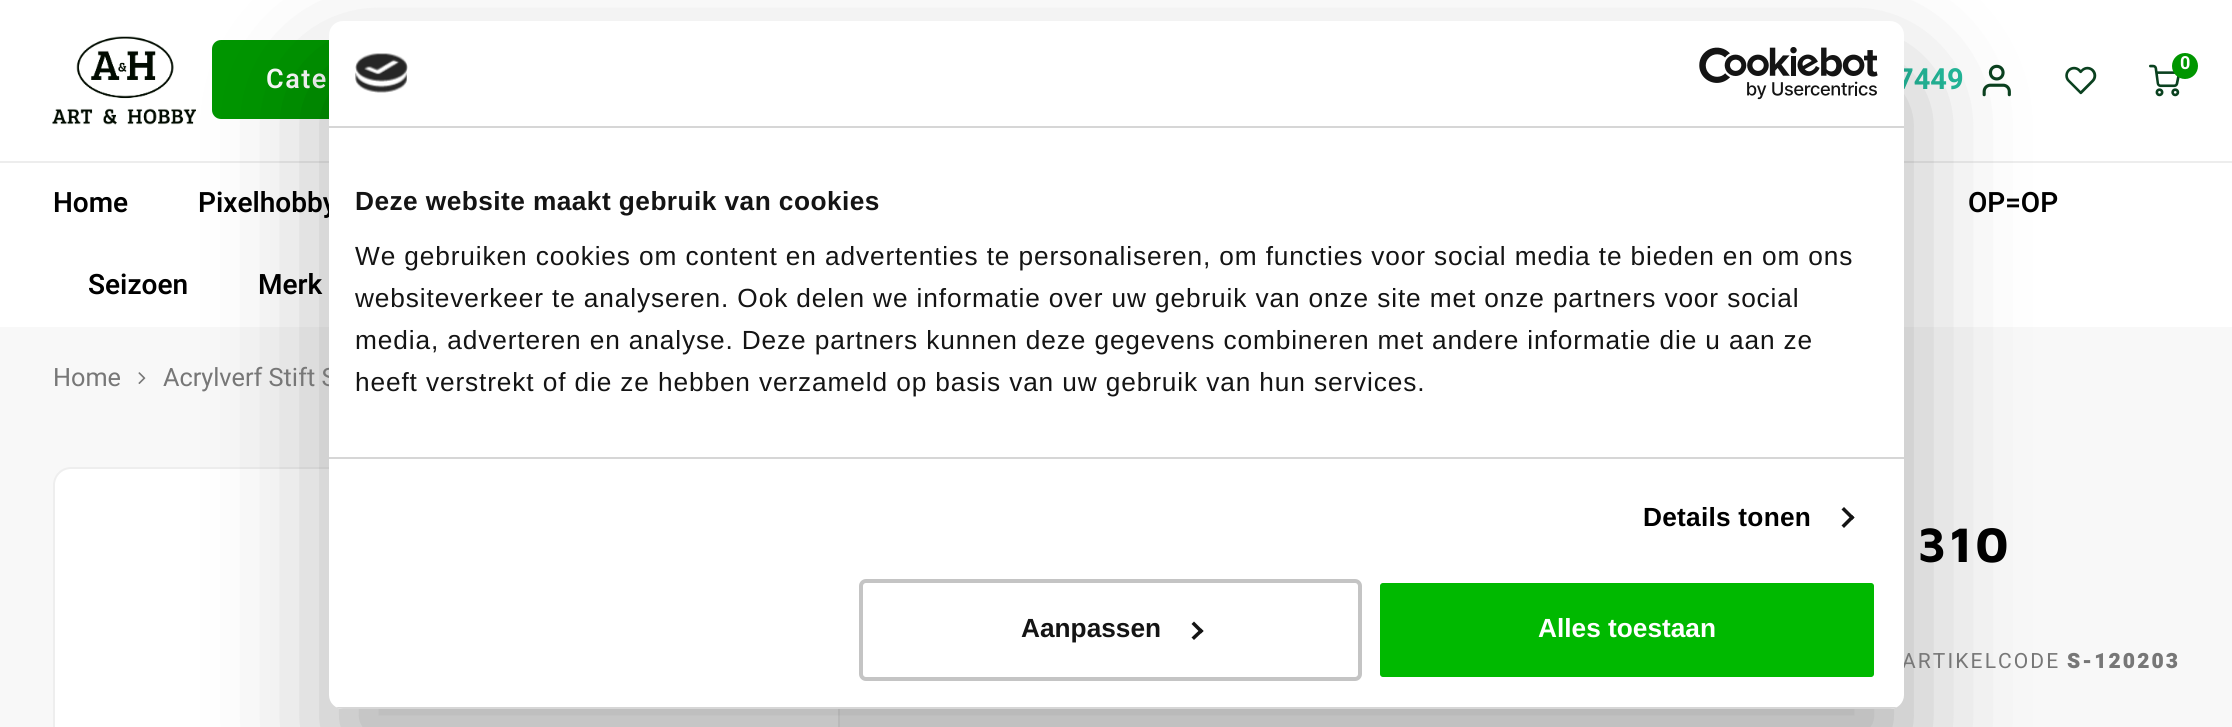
#include <cairo.h>
#include <math.h>
#include <stddef.h>

typedef struct { const char *family; double size; int italic, bold; unsigned color; } style_t;
static cairo_t *ctx;

static void ink(unsigned color) {
    cairo_set_source_rgb(ctx, (color >> 16) / 255.0, (color >> 8 & 255) / 255.0, (color & 255) / 255.0);
}

static void write(double x, double y, const char *s, const style_t *st) {
    cairo_select_font_face(ctx, st->family, st->italic ? CAIRO_FONT_SLANT_ITALIC : CAIRO_FONT_SLANT_NORMAL,
        st->bold ? CAIRO_FONT_WEIGHT_BOLD : CAIRO_FONT_WEIGHT_NORMAL);
    cairo_set_font_size(ctx, st->size);
    ink(st->color);
    cairo_move_to(ctx, x, y);
    cairo_show_text(ctx, s);
}

static void write_spaced(double x, double y, const char *s, double letter, double word) {
    cairo_move_to(ctx, x, y);
    while (*s) {
        char ch[5] = {0};
        int n = 0;
        do ch[n++] = *s++; while ((*s & 0xC0) == 0x80);
        cairo_show_text(ctx, ch);
        cairo_rel_move_to(ctx, letter + word * (*ch == ' '), 0);
    }
}

static void block(double x, double y, double w, double h, unsigned color) {
    ink(color);
    cairo_rectangle(ctx, x, y, w, h);
    cairo_fill(ctx);
}

static void round_path(double x, double y, double w, double h, double r) {
    cairo_new_sub_path(ctx);
    cairo_arc(ctx, x + w - r, y + h - r, r, 0, M_PI / 2);
    cairo_arc(ctx, x + r, y + h - r, r, M_PI / 2, M_PI);
    cairo_arc(ctx, x + r, y + r, r, M_PI, 1.5 * M_PI);
    cairo_arc(ctx, x + w - r, y + r, r, 1.5 * M_PI, 2 * M_PI);
    cairo_close_path(ctx);
}

static void blur_box(double x, double y, double w, double h, double r, double blur, double alpha) {
    cairo_push_group_with_content(ctx, CAIRO_CONTENT_ALPHA);
    cairo_set_operator(ctx, CAIRO_OPERATOR_SOURCE);
    for (int i = 15; i >= -15 && fmin(w, h) + blur * i / 3 > 0; i -= 2) {
        double e = blur * i / 6;
        cairo_set_source_rgba(ctx, 0, 0, 0, alpha * erfc((i - 1) / 8.5) / 2);
        round_path(x - e, y - e, w + 2 * e, h + 2 * e, fmax(0, fmin(r + e + blur * .6, fmin(w, h) / 2 + e)));
        cairo_fill(ctx);
    }
    cairo_pattern_t *soft = cairo_pop_group(ctx);
    cairo_mask(ctx, soft);
    cairo_pattern_destroy(soft);
}

static void paste(const char *path, double x, double y, double w, double h) {
    cairo_surface_t *image = cairo_image_surface_create_from_png(path);
    cairo_save(ctx);
    cairo_set_source_surface(ctx, image, x, y);
    cairo_rectangle(ctx, x, y, w, h);
    cairo_fill(ctx);
    cairo_restore(ctx);
    cairo_surface_destroy(image);
}

static const style_t s1 = {"Heebo", 18, 0, 1, 0xffffff};
static const style_t s2 = {"Heebo", 29, 0, 1, 0x24bb9c};
static const style_t s3 = {"Heebo SemiBold", 28, 0, 0, 0x000000};
static const style_t s4 = {"Heebo", 25.25, 0, 0, 0x777777};
static const style_t s5 = {"Liberation Sans", 26.25, 0, 1, 0x141414};
static const style_t s6 = {"Liberation Sans", 26.25, 0, 1, 0xffffff};

int main(void) {
    cairo_surface_t *surface = cairo_image_surface_create(CAIRO_FORMAT_RGB24, 2232, 727);
    ctx = cairo_create(surface);
    cairo_font_options_t *options = cairo_font_options_create();
    cairo_font_options_set_hint_metrics(options, CAIRO_HINT_METRICS_OFF);
    cairo_font_options_set_hint_style(options, CAIRO_HINT_STYLE_NONE);
    cairo_set_font_options(ctx, options);
    cairo_set_miter_limit(ctx, 4);
    ink(0xffffff);
    cairo_paint(ctx);
    paste("pic1.png", 52, 36, 144, 89);
    paste("pic2.png", 1982, 64, 29, 33);
    paste("pic3.png", 2065, 66, 32, 29);
    paste("pic4.png", 2149, 64, 31, 33);
    ink(0x009600);
    cairo_arc(ctx, 2185, 66, 13, 0, 2 * M_PI);
    cairo_fill(ctx);
    write(2180, 69, "0", &s1);
    ink(0x009600);
    round_path(212, 40, 299, 79, 9);
    cairo_fill(ctx);
    cairo_select_font_face(ctx, "Heebo SemiBold", CAIRO_FONT_SLANT_NORMAL, CAIRO_FONT_WEIGHT_NORMAL);
    cairo_set_font_size(ctx, 27);
    ink(0xffffff);
    write_spaced(266, 88, "Cate", 1.5, 0);
    write(1897, 89, "7449", &s2);
    block(0, 161, 2232, 2, 0xededed);
    write(53, 212, "Home", &s3);
    write(198, 212, "Pixelhobby", &s3);
    write(1968, 212, "OP=OP", &s3);
    write(88, 294, "Seizoen", &s3);
    write(258, 294, "Merk", &s3);
    block(0, 327, 2232, 400, 0xf8f8f8);
    ink(0xffffff);
    round_path(53, 467, 787, 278, 18);
    cairo_fill(ctx);
    round_path(54, 468, 785, 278, 17);
    cairo_set_source_rgba(ctx, 0, 0, 0, 0.07);
    cairo_stroke(ctx);
    ink(0x000000);
    blur_box(329, 77, 1575, 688, 14, 59.5, 0.3);
    write(163, 386, "Acrylverf Stift S", &s4);
    cairo_set_font_size(ctx, 21);
    write_spaced(1902, 668, "ARTIKELCODE", 2.1, 0);
    ink(0xffffff);
    round_path(329, 21, 1575, 688, 14);
    cairo_fill(ctx);
    block(329, 126, 1575, 2, 0xd6d6d6);
    paste("pic5.png", 355, 53, 53, 40);
    paste("pic6.png", 1699, 47, 179, 53);
    block(329, 457, 1575, 2, 0xd6d6d6);
    cairo_select_font_face(ctx, "Liberation Sans", CAIRO_FONT_SLANT_NORMAL, CAIRO_FONT_WEIGHT_BOLD);
    cairo_set_font_size(ctx, 26.25);
    ink(0x141414);
    write_spaced(355, 210, "Deze website maakt gebruik van cookies", 0.45, 0);
    cairo_select_font_face(ctx, "Liberation Sans", CAIRO_FONT_SLANT_NORMAL, CAIRO_FONT_WEIGHT_NORMAL);
    write_spaced(355, 265, "We gebruiken cookies om content en advertenties te personaliseren, om functies voor social media te bieden en om ons", 0.88, 0);
    write_spaced(355, 307, "websiteverkeer te analyseren. Ook delen we informatie over uw gebruik van onze site met onze partners voor social", 0.88, 0);
    write_spaced(355, 349, "media, adverteren en analyse. Deze partners kunnen deze gegevens combineren met andere informatie die u aan ze", 0.88, 0);
    write_spaced(355, 391, "heeft verstrekt of die ze hebben verzameld op basis van uw gebruik van hun services.", 0.88, 0);
    cairo_select_font_face(ctx, "Liberation Sans", CAIRO_FONT_SLANT_NORMAL, CAIRO_FONT_WEIGHT_BOLD);
    ink(0x000000);
    write_spaced(1643, 526, "Details tonen", 0.25, 0);
    ink(0x141414);
    cairo_new_path(ctx);
    cairo_move_to(ctx, 1844, 507);
    cairo_line_to(ctx, 1854.5, 517.5);
    cairo_line_to(ctx, 1852, 520);
    cairo_line_to(ctx, 1841.5, 509.5);
    cairo_close_path(ctx);
    cairo_fill(ctx);
    cairo_new_path(ctx);
    cairo_move_to(ctx, 1852, 515);
    cairo_line_to(ctx, 1854.5, 517.5);
    cairo_line_to(ctx, 1844, 528);
    cairo_line_to(ctx, 1841.5, 525.5);
    cairo_close_path(ctx);
    cairo_fill(ctx);
    cairo_save(ctx);
    round_path(329, 21, 1575, 688, 14);
    cairo_clip(ctx);
    block(329, 707, 1575, 2, 0xd6d6d6);
    cairo_restore(ctx);
    round_path(861, 581, 499, 98, 5);
    ink(0xc4c4c4);
    cairo_set_line_width(ctx, 4);
    cairo_stroke(ctx);
    write(1021, 637, "Aanpassen", &s5);
    cairo_new_path(ctx);
    cairo_move_to(ctx, 1194, 621.5);
    cairo_line_to(ctx, 1203.5, 631);
    cairo_line_to(ctx, 1201, 633.5);
    cairo_line_to(ctx, 1191.5, 624);
    cairo_close_path(ctx);
    cairo_fill(ctx);
    cairo_new_path(ctx);
    cairo_move_to(ctx, 1201, 628.5);
    cairo_line_to(ctx, 1203.5, 631);
    cairo_line_to(ctx, 1194, 640);
    cairo_line_to(ctx, 1191.5, 637.5);
    cairo_close_path(ctx);
    cairo_fill(ctx);
    ink(0x00b900);
    round_path(1378, 581, 498, 98, 5);
    cairo_fill_preserve(ctx);
    ink(0xffffff);
    cairo_stroke(ctx);
    write(1538, 637, "Alles toestaan", &s6);
    write(53, 386, "Home", &s4);
    paste("pic7.png", 138, 372, 8, 12);
    cairo_select_font_face(ctx, "Maven Pro", CAIRO_FONT_SLANT_NORMAL, CAIRO_FONT_WEIGHT_BOLD);
    cairo_set_font_size(ctx, 50);
    ink(0x000000);
    write_spaced(1917, 562, "310", 2.5, 0);
    cairo_select_font_face(ctx, "Heebo Black", CAIRO_FONT_SLANT_NORMAL, CAIRO_FONT_WEIGHT_NORMAL);
    cairo_set_font_size(ctx, 21);
    ink(0x777777);
    write_spaced(2067, 668, "S-120203", 2.1, 0);
    cairo_surface_write_to_png(surface, "screenshot.png");
    cairo_font_options_destroy(options);
    cairo_destroy(ctx);
    cairo_surface_destroy(surface);
    return 0;
}
